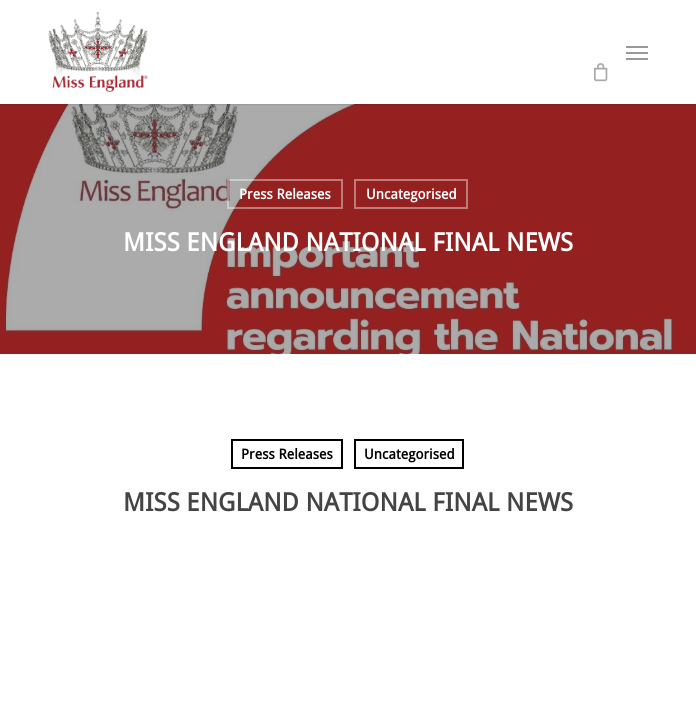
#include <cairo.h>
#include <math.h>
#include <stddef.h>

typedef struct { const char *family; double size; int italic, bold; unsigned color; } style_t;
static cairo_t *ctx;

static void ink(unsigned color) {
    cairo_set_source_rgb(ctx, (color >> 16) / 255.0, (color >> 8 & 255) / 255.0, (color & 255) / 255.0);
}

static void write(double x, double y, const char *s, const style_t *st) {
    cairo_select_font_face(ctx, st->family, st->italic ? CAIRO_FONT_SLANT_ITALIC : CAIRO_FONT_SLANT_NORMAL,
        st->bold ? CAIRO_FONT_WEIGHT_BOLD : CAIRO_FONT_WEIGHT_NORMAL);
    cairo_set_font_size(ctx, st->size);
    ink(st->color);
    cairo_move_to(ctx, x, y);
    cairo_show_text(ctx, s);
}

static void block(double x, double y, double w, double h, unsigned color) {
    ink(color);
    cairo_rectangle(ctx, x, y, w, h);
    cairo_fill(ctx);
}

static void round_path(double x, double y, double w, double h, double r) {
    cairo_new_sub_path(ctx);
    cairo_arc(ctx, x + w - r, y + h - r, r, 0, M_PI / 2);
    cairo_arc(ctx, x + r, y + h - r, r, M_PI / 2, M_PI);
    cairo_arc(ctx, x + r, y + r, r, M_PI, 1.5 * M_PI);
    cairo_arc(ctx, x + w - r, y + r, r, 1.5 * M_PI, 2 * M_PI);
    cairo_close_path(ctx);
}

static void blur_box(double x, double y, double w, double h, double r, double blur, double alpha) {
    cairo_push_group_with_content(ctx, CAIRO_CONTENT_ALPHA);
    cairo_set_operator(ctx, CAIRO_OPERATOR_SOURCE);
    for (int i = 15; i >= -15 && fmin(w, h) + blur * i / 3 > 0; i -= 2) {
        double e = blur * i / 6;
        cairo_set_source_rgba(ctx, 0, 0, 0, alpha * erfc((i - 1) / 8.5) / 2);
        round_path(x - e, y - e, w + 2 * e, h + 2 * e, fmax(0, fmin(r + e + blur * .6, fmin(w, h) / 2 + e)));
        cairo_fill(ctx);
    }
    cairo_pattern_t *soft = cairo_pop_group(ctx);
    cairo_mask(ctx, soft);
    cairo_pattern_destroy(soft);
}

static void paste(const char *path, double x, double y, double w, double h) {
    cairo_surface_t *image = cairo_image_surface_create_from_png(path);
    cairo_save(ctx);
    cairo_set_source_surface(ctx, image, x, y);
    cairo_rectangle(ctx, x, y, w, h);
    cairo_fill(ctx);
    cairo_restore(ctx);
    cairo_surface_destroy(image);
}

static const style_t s1 = {"Droid Sans", 14, 0, 1, 0xffffff};
static const style_t s2 = {"Droid Sans", 25.25, 0, 1, 0xffffff};
static const style_t s3 = {"Droid Sans", 14, 0, 1, 0x000000};
static const style_t s4 = {"Droid Sans", 25.25, 0, 1, 0x444444};

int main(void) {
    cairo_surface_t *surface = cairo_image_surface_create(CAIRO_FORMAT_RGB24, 696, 701);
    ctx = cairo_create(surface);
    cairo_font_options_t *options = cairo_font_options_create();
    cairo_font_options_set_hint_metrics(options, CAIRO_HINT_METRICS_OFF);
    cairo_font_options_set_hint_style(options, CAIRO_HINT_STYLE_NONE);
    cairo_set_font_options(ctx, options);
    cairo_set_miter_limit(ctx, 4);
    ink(0xffffff);
    cairo_paint(ctx);
    paste("pic3.png", 0, 104, 696, 250);
    cairo_save(ctx);
    cairo_rectangle(ctx, 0, 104, 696, 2);
    cairo_clip(ctx);
    ink(0x000000);
    blur_box(0, 0, 696, 104, 0, 1.5, 0.22);
    cairo_restore(ctx);
    paste("pic1.png", 48, 12, 100, 80);
    block(626, 46, 22, 2, 0x999999);
    block(626, 58, 22, 2, 0x999999);
    block(626, 52, 22, 2, 0x999999);
    paste("pic2.png", 594, 63, 14, 19);
    cairo_rectangle(ctx, 228, 180, 114, 28);
    cairo_set_source_rgba(ctx, 1, 1, 1, 0.4);
    cairo_stroke(ctx);
    write(239, 199, "Press Releases", &s1);
    cairo_rectangle(ctx, 355, 180, 112, 28);
    ink(0xbf7a79);
    cairo_stroke(ctx);
    write(366, 199, "Uncategorised", &s1);
    write(123, 251, "MISS ENGLAND NATIONAL FINAL NEWS", &s2);
    cairo_rectangle(ctx, 232, 440, 110, 28);
    ink(0x000000);
    cairo_stroke(ctx);
    write(241, 459, "Press Releases", &s3);
    cairo_rectangle(ctx, 355, 440, 108, 28);
    cairo_stroke(ctx);
    write(364, 459, "Uncategorised", &s3);
    write(123, 511, "MISS ENGLAND NATIONAL FINAL NEWS", &s4);
    cairo_surface_write_to_png(surface, "screenshot.png");
    cairo_font_options_destroy(options);
    cairo_destroy(ctx);
    cairo_surface_destroy(surface);
    return 0;
}
